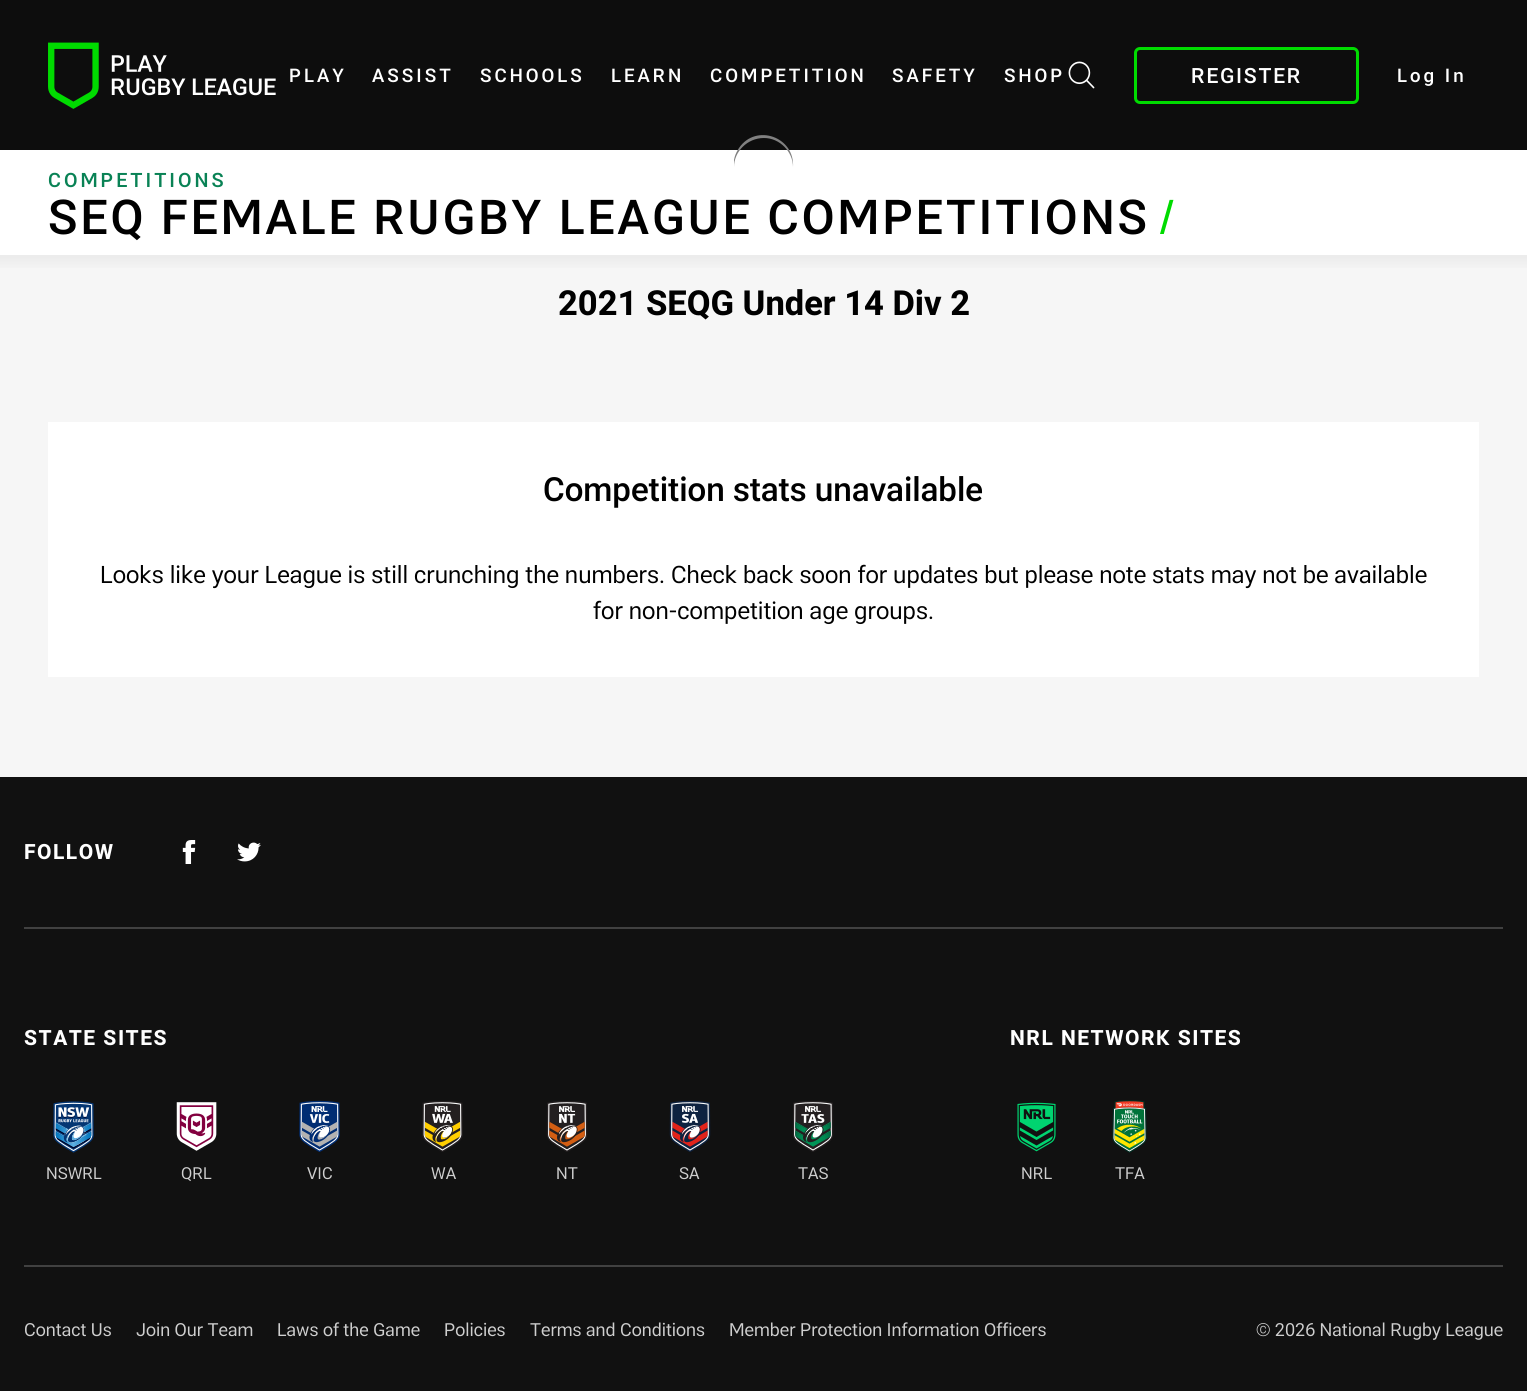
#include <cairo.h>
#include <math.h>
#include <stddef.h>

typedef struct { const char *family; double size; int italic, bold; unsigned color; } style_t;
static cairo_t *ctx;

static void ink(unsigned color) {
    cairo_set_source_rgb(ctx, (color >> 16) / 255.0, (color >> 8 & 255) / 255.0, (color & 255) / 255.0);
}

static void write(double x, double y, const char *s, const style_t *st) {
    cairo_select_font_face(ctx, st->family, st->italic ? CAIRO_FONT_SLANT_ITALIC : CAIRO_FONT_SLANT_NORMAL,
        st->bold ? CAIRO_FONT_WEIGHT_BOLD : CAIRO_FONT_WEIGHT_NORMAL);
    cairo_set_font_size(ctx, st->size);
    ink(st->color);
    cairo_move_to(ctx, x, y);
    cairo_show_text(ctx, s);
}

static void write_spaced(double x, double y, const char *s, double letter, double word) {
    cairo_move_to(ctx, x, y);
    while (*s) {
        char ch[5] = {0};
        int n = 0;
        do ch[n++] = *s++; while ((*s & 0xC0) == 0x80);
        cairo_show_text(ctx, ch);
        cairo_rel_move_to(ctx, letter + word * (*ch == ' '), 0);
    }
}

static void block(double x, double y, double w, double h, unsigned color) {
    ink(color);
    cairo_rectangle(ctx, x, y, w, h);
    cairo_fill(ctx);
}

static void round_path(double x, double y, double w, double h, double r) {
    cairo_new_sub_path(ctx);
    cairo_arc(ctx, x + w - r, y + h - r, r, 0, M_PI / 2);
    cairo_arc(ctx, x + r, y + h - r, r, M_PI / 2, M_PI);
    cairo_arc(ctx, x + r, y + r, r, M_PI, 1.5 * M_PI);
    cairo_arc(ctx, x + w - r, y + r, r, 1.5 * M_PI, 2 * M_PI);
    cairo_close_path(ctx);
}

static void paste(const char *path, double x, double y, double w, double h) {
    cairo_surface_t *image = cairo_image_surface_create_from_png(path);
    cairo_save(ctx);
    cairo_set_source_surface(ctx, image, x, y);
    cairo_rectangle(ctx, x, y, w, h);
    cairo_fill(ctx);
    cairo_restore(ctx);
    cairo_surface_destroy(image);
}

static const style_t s1 = {"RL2", 34.5, 0, 1, 0x000000};
static const style_t s2 = {"RL2 Medium", 33.25, 0, 0, 0x000000};
static const style_t s3 = {"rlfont", 24, 0, 0, 0x000000};
static const style_t s4 = {"rlfont", 16.5, 0, 0, 0xcfcfcf};
static const style_t s5 = {"rlfont", 18, 0, 0, 0xcfcfcf};

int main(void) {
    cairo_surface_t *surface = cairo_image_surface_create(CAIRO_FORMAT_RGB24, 1527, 1391);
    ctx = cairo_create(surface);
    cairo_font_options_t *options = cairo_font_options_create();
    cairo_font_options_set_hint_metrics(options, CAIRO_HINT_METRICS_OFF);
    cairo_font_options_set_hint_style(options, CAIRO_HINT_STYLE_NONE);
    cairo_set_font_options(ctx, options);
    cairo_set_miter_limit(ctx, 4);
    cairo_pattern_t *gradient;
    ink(0xf6f6f6);
    cairo_paint(ctx);
    block(0, 0, 1527, 150, 0x0d0d0d);
    paste("pic1.png", 48, 42, 228, 67);
    cairo_select_font_face(ctx, "RL2 Medium", CAIRO_FONT_SLANT_NORMAL, CAIRO_FONT_WEIGHT_NORMAL);
    cairo_set_font_size(ctx, 18.75);
    ink(0xffffff);
    write_spaced(289, 82, "PLAY", 3, 0);
    write_spaced(372, 82, "ASSIST", 3, 0);
    write_spaced(480, 82, "SCHOOLS", 3, 0);
    write_spaced(611, 82, "LEARN", 3, 0);
    write_spaced(710, 82, "COMPETITION", 3, 0);
    write_spaced(892, 82, "SAFETY", 3, 0);
    write_spaced(1004, 82, "SHOP", 3, 0);
    paste("pic2.png", 1068, 61, 27, 28);
    round_path(1135.5, 48.5, 222, 54, 4.5);
    ink(0x00db00);
    cairo_set_line_width(ctx, 3);
    cairo_stroke(ctx);
    cairo_set_font_size(ctx, 21);
    ink(0xffffff);
    write_spaced(1191, 83, "REGISTER", 1.75, 0);
    cairo_set_font_size(ctx, 18.75);
    write_spaced(1397, 82, "Log In", 3, 0);
    block(0, 150, 1527, 105, 0xffffff);
    cairo_set_font_size(ctx, 19.75);
    ink(0x098255);
    write_spaced(48, 187, "COMPETITIONS", 3, 0);
    cairo_set_font_size(ctx, 48);
    ink(0x000000);
    write_spaced(48, 234, "SEQ FEMALE RUGBY LEAGUE COMPETITIONS", 3, 0);
    cairo_select_font_face(ctx, "rlfont", CAIRO_FONT_SLANT_NORMAL, CAIRO_FONT_WEIGHT_NORMAL);
    ink(0x00db00);
    write_spaced(1157, 234, "/", 3, 0);
    gradient = cairo_pattern_create_linear(764, 255, 764, 272);
    cairo_pattern_add_color_stop_rgba(gradient, 0.1, 0.925, 0.925, 0.925, 1);
    cairo_pattern_add_color_stop_rgba(gradient, 1, 0.965, 0.965, 0.965, 1);
    cairo_set_source(ctx, gradient);
    cairo_pattern_destroy(gradient);
    cairo_rectangle(ctx, 0, 255, 1527, 13);
    cairo_fill(ctx);
    write(558, 315, "2021 SEQG Under 14 Div 2", &s1);
    cairo_save(ctx);
    cairo_rectangle(ctx, 734, 135, 60, 60);
    cairo_clip(ctx);
    ink(0x808080);
    cairo_set_fill_rule(ctx, CAIRO_FILL_RULE_EVEN_ODD);
    cairo_new_path(ctx);
    cairo_move_to(ctx, 734, 167);
    cairo_curve_to(ctx, 733, 160, 735, 154, 739, 148);
    cairo_curve_to(ctx, 756, 123, 795, 137, 793, 167);
    cairo_curve_to(ctx, 793, 152, 780, 138, 764, 138);
    cairo_curve_to(ctx, 747, 138, 734, 152, 734, 167);
    cairo_close_path(ctx);
    cairo_fill(ctx);
    cairo_restore(ctx);
    block(48, 422, 1431, 255, 0xffffff);
    write(543, 501, "Competition stats unavailable", &s2);
    write(100, 583, "Looks like your League is still crunching the numbers. Check back soon for updates but please note stats may not be available", &s3);
    write(593, 619, "for non-competition age groups.", &s3);
    block(0, 777, 1527, 614, 0x111111);
    block(24, 927, 1479, 2, 0x414141);
    cairo_select_font_face(ctx, "RL2", CAIRO_FONT_SLANT_NORMAL, CAIRO_FONT_WEIGHT_BOLD);
    cairo_set_font_size(ctx, 21);
    ink(0xffffff);
    write_spaced(24, 859, "FOLLOW", 1.5, 0);
    paste("pic3.png", 182, 840, 14, 24);
    paste("pic4.png", 237, 842, 24, 20);
    block(24, 1265, 1479, 2, 0x414141);
    ink(0xffffff);
    write_spaced(24, 1045, "STATE SITES", 1.5, 0);
    paste("pic5.png", 53, 1101, 41, 52);
    write(46, 1179, "NSWRL", &s4);
    paste("pic6.png", 176, 1102, 41, 49);
    write(181, 1179, "QRL", &s4);
    paste("pic7.png", 299, 1100, 41, 52);
    write(307, 1179, "VIC", &s4);
    paste("pic8.png", 422, 1101, 41, 51);
    write(431, 1179, "WA", &s4);
    paste("pic9.png", 546, 1101, 42, 51);
    write(556, 1179, "NT", &s4);
    paste("pic10.png", 669, 1100, 42, 52);
    write(679, 1179, "SA", &s4);
    paste("pic11.png", 792, 1101, 42, 51);
    write(798, 1179, "TAS", &s4);
    cairo_select_font_face(ctx, "RL2", CAIRO_FONT_SLANT_NORMAL, CAIRO_FONT_WEIGHT_BOLD);
    cairo_set_font_size(ctx, 21);
    ink(0xffffff);
    write_spaced(1010, 1045, "NRL NETWORK SITES", 1.5, 0);
    paste("pic12.png", 1017, 1102, 39, 50);
    write(1021, 1179, "NRL", &s4);
    paste("pic13.png", 1112, 1100, 35, 53);
    write(1115, 1179, "TFA", &s4);
    write(24, 1336, "Contact Us", &s5);
    write(136, 1336, "Join Our Team", &s5);
    write(277, 1336, "Laws of the Game", &s5);
    write(444, 1336, "Policies", &s5);
    write(530, 1336, "Terms and Conditions", &s5);
    write(729, 1336, "Member Protection Information Officers", &s5);
    write(1256, 1336, "© 2026 National Rugby League", &s5);
    cairo_surface_write_to_png(surface, "screenshot.png");
    cairo_font_options_destroy(options);
    cairo_destroy(ctx);
    cairo_surface_destroy(surface);
    return 0;
}
